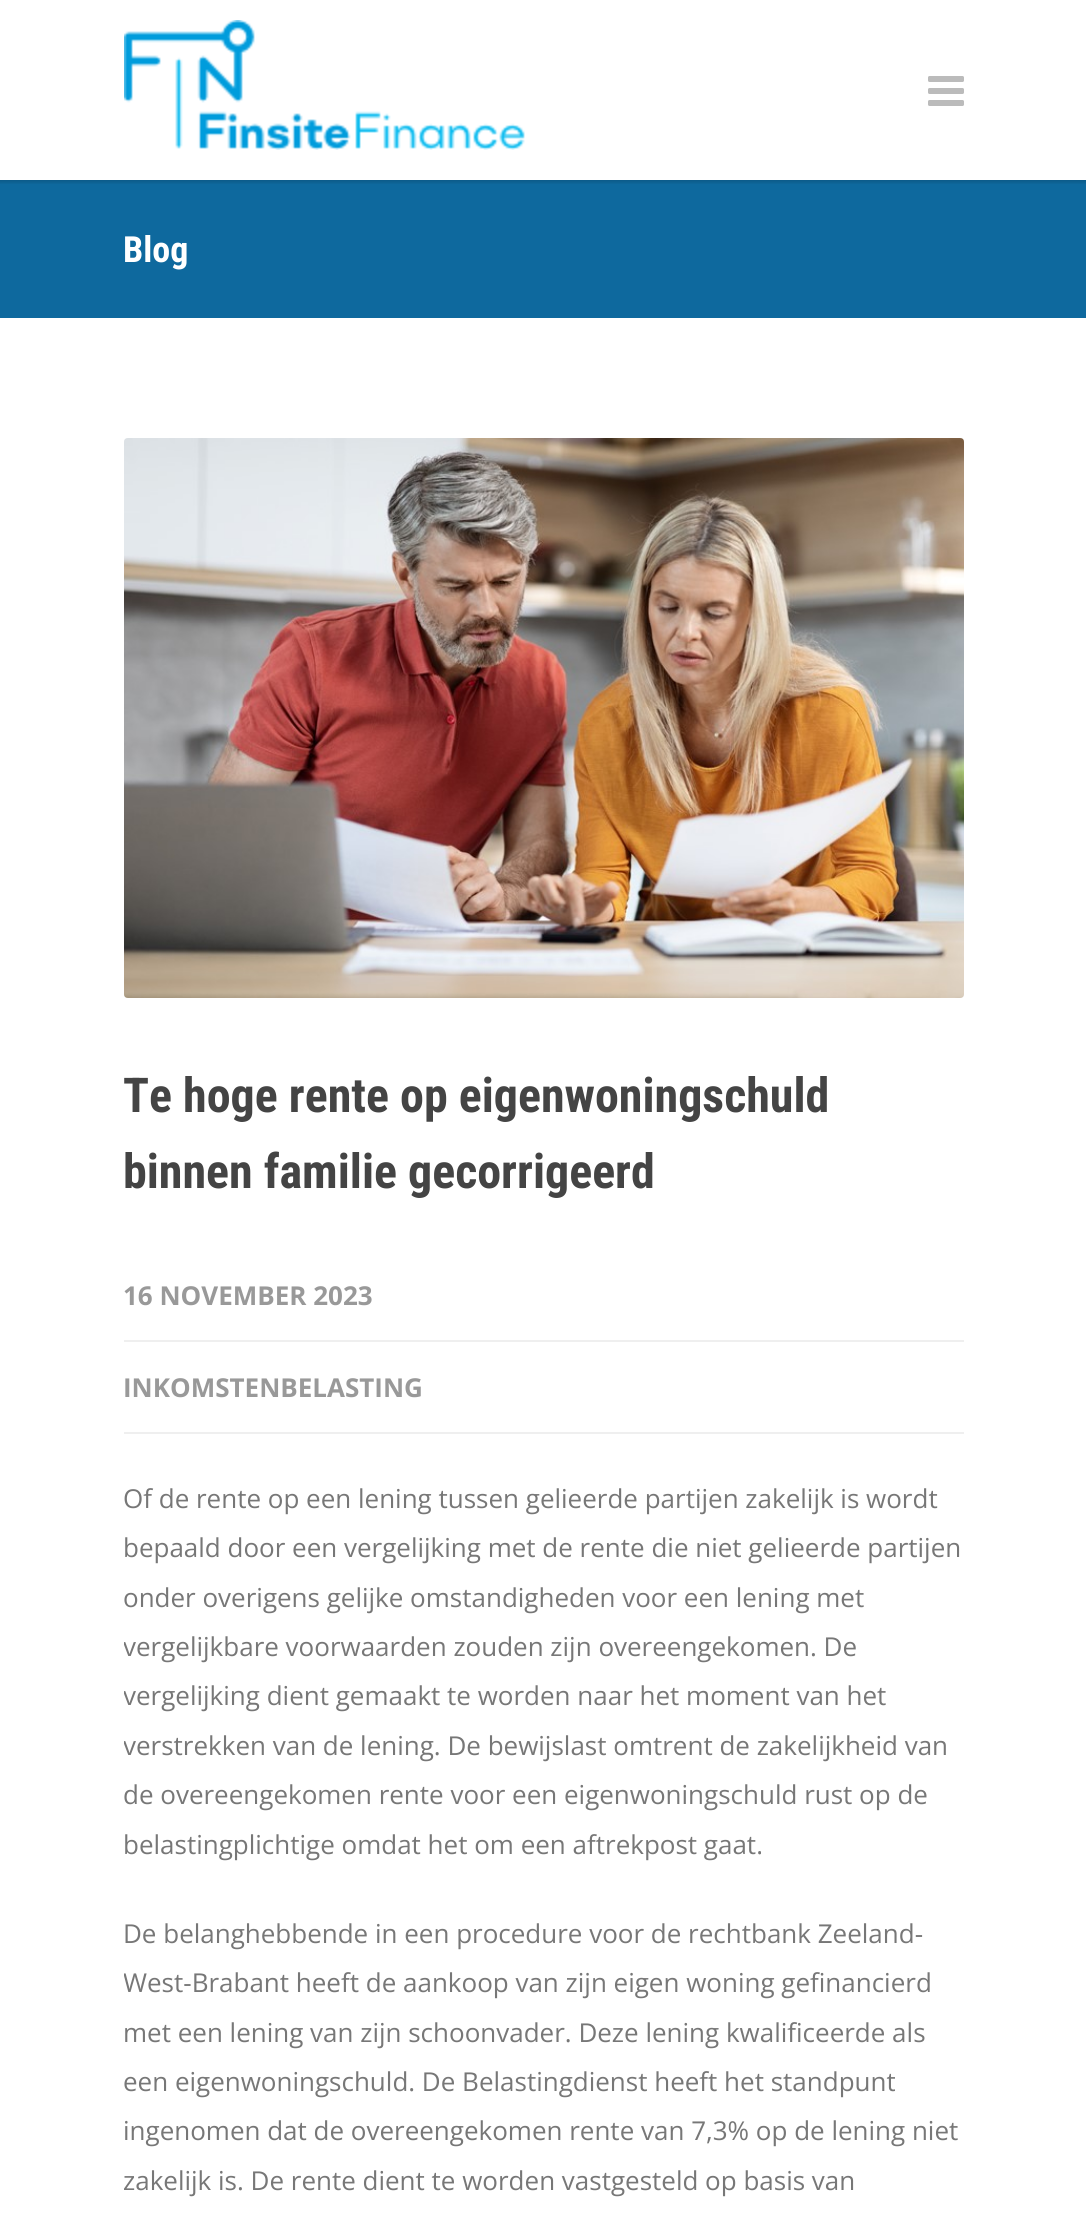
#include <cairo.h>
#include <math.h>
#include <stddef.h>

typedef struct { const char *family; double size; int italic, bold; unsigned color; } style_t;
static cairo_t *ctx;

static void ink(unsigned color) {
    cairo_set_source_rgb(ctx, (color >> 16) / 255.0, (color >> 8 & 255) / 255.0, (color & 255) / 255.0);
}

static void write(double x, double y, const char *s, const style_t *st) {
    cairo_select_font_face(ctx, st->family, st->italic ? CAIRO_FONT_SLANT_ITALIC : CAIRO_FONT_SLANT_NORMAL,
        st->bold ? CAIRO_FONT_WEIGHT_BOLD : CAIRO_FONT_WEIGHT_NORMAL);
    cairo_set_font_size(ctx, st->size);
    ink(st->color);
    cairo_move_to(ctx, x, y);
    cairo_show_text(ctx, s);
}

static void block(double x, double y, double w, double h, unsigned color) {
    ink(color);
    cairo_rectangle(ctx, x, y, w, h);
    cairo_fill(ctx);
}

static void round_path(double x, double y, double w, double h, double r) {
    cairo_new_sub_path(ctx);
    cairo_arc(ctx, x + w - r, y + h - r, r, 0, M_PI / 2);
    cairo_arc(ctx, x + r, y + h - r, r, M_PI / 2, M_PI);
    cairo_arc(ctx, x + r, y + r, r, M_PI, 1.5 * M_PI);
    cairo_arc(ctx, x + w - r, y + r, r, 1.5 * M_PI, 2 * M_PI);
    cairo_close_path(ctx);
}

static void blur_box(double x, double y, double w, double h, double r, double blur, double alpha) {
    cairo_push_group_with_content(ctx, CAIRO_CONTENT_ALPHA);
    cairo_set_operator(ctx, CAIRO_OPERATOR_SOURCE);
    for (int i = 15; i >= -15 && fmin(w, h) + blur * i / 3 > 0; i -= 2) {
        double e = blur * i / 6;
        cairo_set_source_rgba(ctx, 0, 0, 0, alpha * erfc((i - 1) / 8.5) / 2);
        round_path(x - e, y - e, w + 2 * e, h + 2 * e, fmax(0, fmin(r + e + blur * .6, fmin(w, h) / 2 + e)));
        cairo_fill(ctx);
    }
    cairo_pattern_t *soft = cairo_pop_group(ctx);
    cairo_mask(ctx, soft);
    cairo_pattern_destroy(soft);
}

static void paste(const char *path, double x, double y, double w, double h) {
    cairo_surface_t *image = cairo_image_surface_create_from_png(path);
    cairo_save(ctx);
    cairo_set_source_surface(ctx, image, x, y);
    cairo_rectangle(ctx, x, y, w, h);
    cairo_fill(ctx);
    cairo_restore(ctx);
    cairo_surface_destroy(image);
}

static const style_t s1 = {"Roboto Condensed", 36, 0, 1, 0xffffff};
static const style_t s2 = {"Roboto Condensed", 48, 0, 1, 0x444444};
static const style_t s3 = {"Open Sans", 26, 0, 1, 0x999999};
static const style_t s4 = {"Open Sans", 26, 0, 0, 0x777777};

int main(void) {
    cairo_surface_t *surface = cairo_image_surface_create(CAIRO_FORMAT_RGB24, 1086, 2226);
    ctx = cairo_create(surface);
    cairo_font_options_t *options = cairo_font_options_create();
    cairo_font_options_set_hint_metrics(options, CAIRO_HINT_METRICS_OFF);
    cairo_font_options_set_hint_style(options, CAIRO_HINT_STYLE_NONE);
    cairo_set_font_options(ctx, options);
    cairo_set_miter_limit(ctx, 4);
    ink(0xffffff);
    cairo_paint(ctx);
    block(0, 180, 1086, 138, 0x0e699e);
    cairo_save(ctx);
    cairo_rectangle(ctx, 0, 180, 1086, 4);
    cairo_clip(ctx);
    ink(0x000000);
    blur_box(-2, -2, 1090, 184, 0, 2, 0.16);
    cairo_restore(ctx);
    paste("pic1.png", 124, 20, 401, 130);
    paste("pic2.png", 928, 76, 36, 30);
    write(123, 262, "Blog", &s1);
    paste("pic3.png", 124, 438, 840, 560);
    write(123, 1112, "Te hoge rente op eigenwoningschuld", &s2);
    write(123, 1188, "binnen familie gecorrigeerd", &s2);
    block(124, 1340, 840, 2, 0xefefef);
    write(123, 1305, "16 NOVEMBER 2023", &s3);
    block(124, 1432, 840, 2, 0xefefef);
    write(123, 1397, "INKOMSTENBELASTING", &s3);
    write(123, 1508, "Of de rente op een lening tussen gelieerde partijen zakelijk is wordt", &s4);
    write(123, 1557, "bepaald door een vergelijking met de rente die niet gelieerde partijen", &s4);
    write(123, 1607, "onder overigens gelijke omstandigheden voor een lening met", &s4);
    cairo_save(ctx);
    cairo_rectangle(ctx, 124, 438, 840, 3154);
    cairo_clip(ctx);
    write(123, 1656, "vergelijkbare voorwaarden zouden zijn overeengekomen. De", &s4);
    write(123, 1705, "vergelijking dient gemaakt te worden naar het moment van het", &s4);
    write(123, 1755, "verstrekken van de lening. De bewijslast omtrent de zakelijkheid van", &s4);
    cairo_restore(ctx);
    write(123, 1804, "de overeengekomen rente voor een eigenwoningschuld rust op de", &s4);
    write(123, 1854, "belastingplichtige omdat het om een aftrekpost gaat.", &s4);
    write(123, 1943, "De belanghebbende in een procedure voor de rechtbank Zeeland-", &s4);
    cairo_save(ctx);
    cairo_rectangle(ctx, 124, 438, 840, 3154);
    cairo_clip(ctx);
    write(123, 1992, "West-Brabant heeft de aankoop van zijn eigen woning gefinancierd", &s4);
    cairo_restore(ctx);
    write(123, 2042, "met een lening van zijn schoonvader. Deze lening kwalificeerde als", &s4);
    write(123, 2091, "een eigenwoningschuld. De Belastingdienst heeft het standpunt", &s4);
    write(123, 2140, "ingenomen dat de overeengekomen rente van 7,3% op de lening niet", &s4);
    write(123, 2190, "zakelijk is. De rente dient te worden vastgesteld op basis van", &s4);
    cairo_surface_write_to_png(surface, "screenshot.png");
    cairo_font_options_destroy(options);
    cairo_destroy(ctx);
    cairo_surface_destroy(surface);
    return 0;
}
